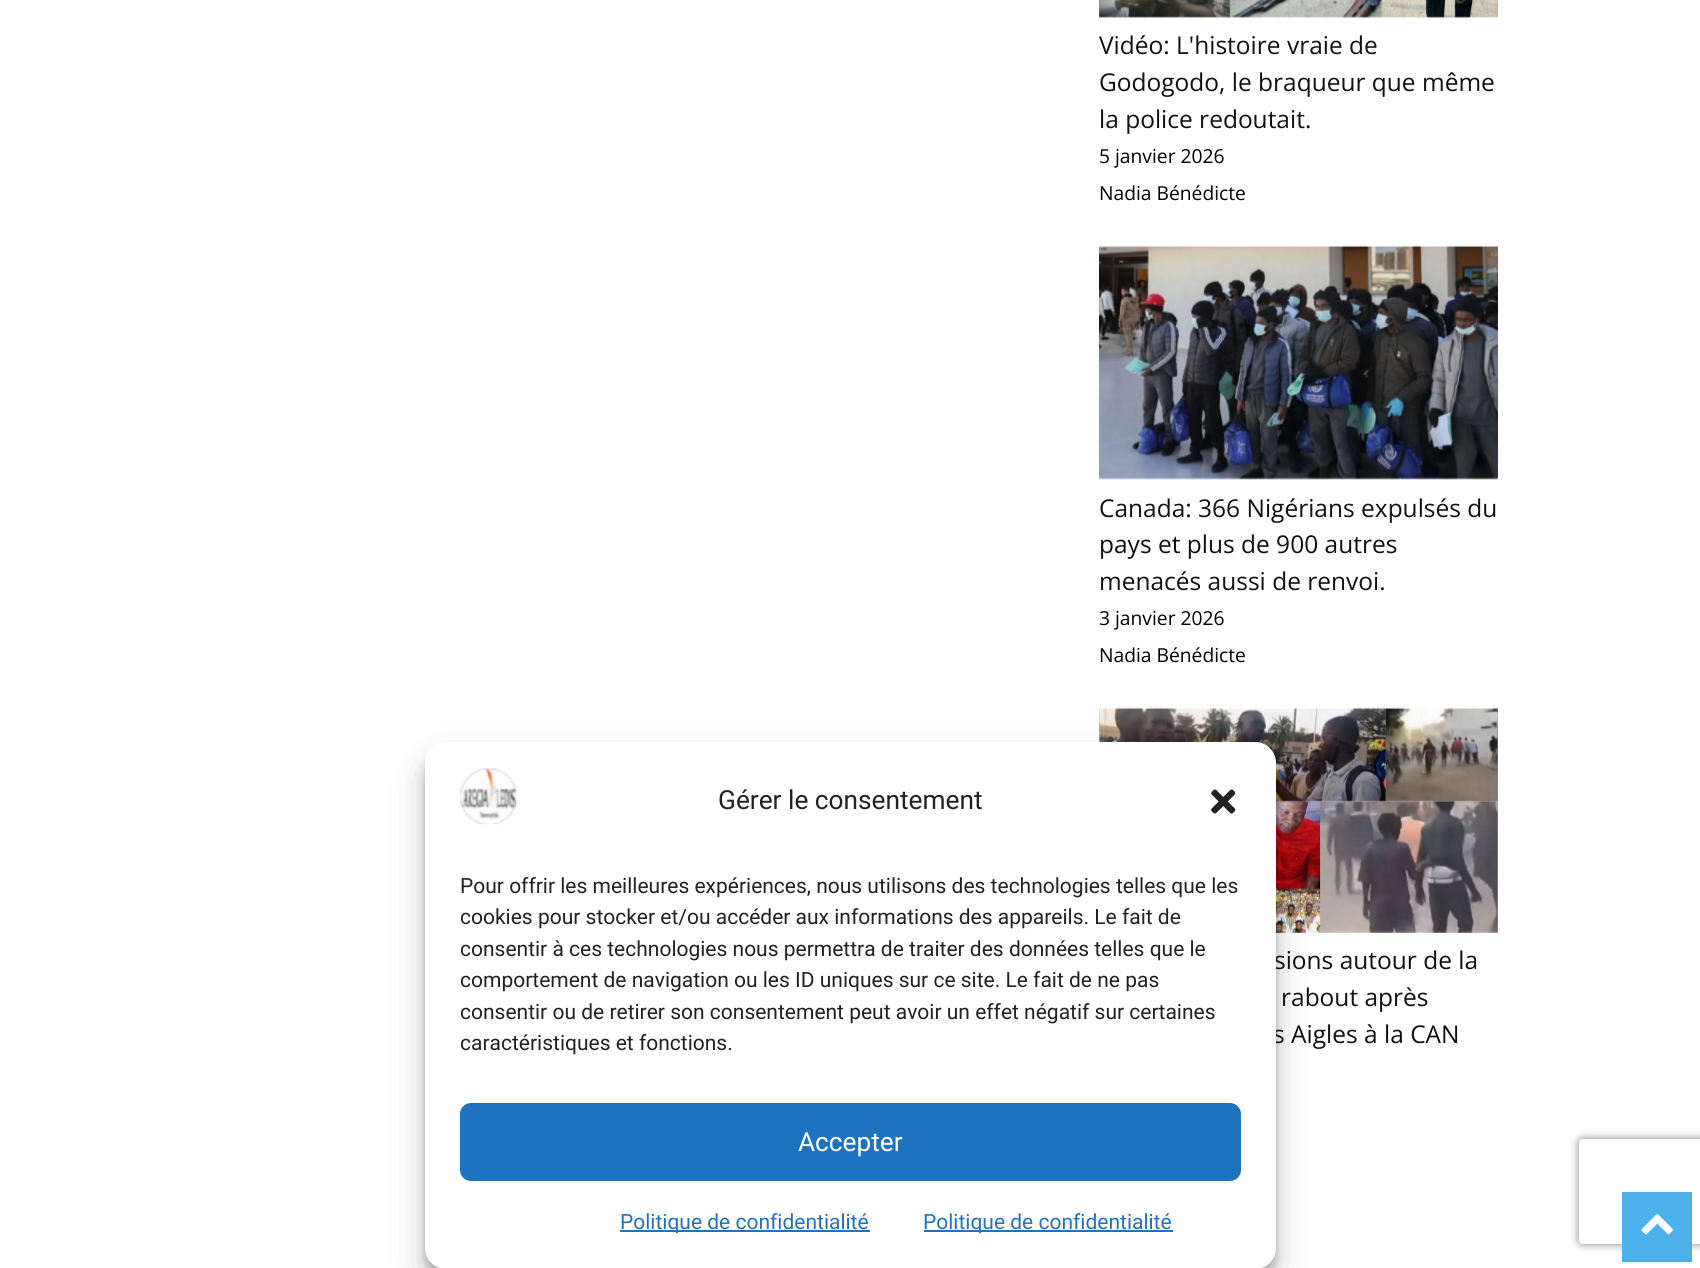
#include <cairo.h>
#include <math.h>
#include <stddef.h>

typedef struct { const char *family; double size; int italic, bold; unsigned color; } style_t;
static cairo_t *ctx;

static void ink(unsigned color) {
    cairo_set_source_rgb(ctx, (color >> 16) / 255.0, (color >> 8 & 255) / 255.0, (color & 255) / 255.0);
}

static void write(double x, double y, const char *s, const style_t *st) {
    cairo_select_font_face(ctx, st->family, st->italic ? CAIRO_FONT_SLANT_ITALIC : CAIRO_FONT_SLANT_NORMAL,
        st->bold ? CAIRO_FONT_WEIGHT_BOLD : CAIRO_FONT_WEIGHT_NORMAL);
    cairo_set_font_size(ctx, st->size);
    ink(st->color);
    cairo_move_to(ctx, x, y);
    cairo_show_text(ctx, s);
}

static void block(double x, double y, double w, double h, unsigned color) {
    ink(color);
    cairo_rectangle(ctx, x, y, w, h);
    cairo_fill(ctx);
}

static void round_path(double x, double y, double w, double h, double r) {
    cairo_new_sub_path(ctx);
    cairo_arc(ctx, x + w - r, y + h - r, r, 0, M_PI / 2);
    cairo_arc(ctx, x + r, y + h - r, r, M_PI / 2, M_PI);
    cairo_arc(ctx, x + r, y + r, r, M_PI, 1.5 * M_PI);
    cairo_arc(ctx, x + w - r, y + r, r, 1.5 * M_PI, 2 * M_PI);
    cairo_close_path(ctx);
}

static void blur_box(double x, double y, double w, double h, double r, double blur, double alpha) {
    cairo_push_group_with_content(ctx, CAIRO_CONTENT_ALPHA);
    cairo_set_operator(ctx, CAIRO_OPERATOR_SOURCE);
    for (int i = 15; i >= -15 && fmin(w, h) + blur * i / 3 > 0; i -= 2) {
        double e = blur * i / 6;
        cairo_set_source_rgba(ctx, 0, 0, 0, alpha * erfc((i - 1) / 8.5) / 2);
        round_path(x - e, y - e, w + 2 * e, h + 2 * e, fmax(0, fmin(r + e + blur * .6, fmin(w, h) / 2 + e)));
        cairo_fill(ctx);
    }
    cairo_pattern_t *soft = cairo_pop_group(ctx);
    cairo_mask(ctx, soft);
    cairo_pattern_destroy(soft);
}

static void paste(const char *path, double x, double y, double w, double h) {
    cairo_surface_t *image = cairo_image_surface_create_from_png(path);
    cairo_save(ctx);
    cairo_set_source_surface(ctx, image, x, y);
    cairo_rectangle(ctx, x, y, w, h);
    cairo_fill(ctx);
    cairo_restore(ctx);
    cairo_surface_destroy(image);
}

static const style_t s1 = {"Open Sans", 24.5, 0, 0, 0x111111};
static const style_t s2 = {"Roboto", 26.25, 0, 0, 0x222222};
static const style_t s3 = {"Roboto", 21, 0, 0, 0x222222};
static const style_t s4 = {"Roboto", 26.25, 0, 0, 0xffffff};
static const style_t s5 = {"Roboto", 21, 0, 0, 0x1e73be};
static const style_t s6 = {"Open Sans", 19.25, 0, 0, 0x000000};

int main(void) {
    cairo_surface_t *surface = cairo_image_surface_create(CAIRO_FORMAT_RGB24, 1700, 1268);
    ctx = cairo_create(surface);
    cairo_font_options_t *options = cairo_font_options_create();
    cairo_font_options_set_hint_metrics(options, CAIRO_HINT_METRICS_OFF);
    cairo_font_options_set_hint_style(options, CAIRO_HINT_STYLE_NONE);
    cairo_set_font_options(ctx, options);
    cairo_set_miter_limit(ctx, 4);
    ink(0xffffff);
    cairo_paint(ctx);
    paste("pic5.png", 1099, 707, 399, 226);
    ink(0x000000);
    blur_box(425, 753, 851, 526, 21, 5, 0.23);
    blur_box(425, 760, 851, 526, 21, 17.5, 0.19);
    write(1274, 969, "sions autour de la", &s1);
    write(1273, 1043, "s Aigles à la CAN", &s1);
    ink(0xffffff);
    round_path(425, 742, 851, 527, 21);
    cairo_fill(ctx);
    paste("pic1.png", 460, 768, 57, 57);
    write(718, 809, "Gérer le consentement", &s2);
    paste("pic2.png", 1211, 789, 25, 25);
    write(460, 893, "Pour offrir les meilleures expériences, nous utilisons des technologies telles que les", &s3);
    write(460, 924, "cookies pour stocker et/ou accéder aux informations des appareils. Le fait de", &s3);
    write(460, 956, "consentir à ces technologies nous permettra de traiter des données telles que le", &s3);
    write(460, 987, "comportement de navigation ou les ID uniques sur ce site. Le fait de ne pas", &s3);
    write(460, 1019, "consentir ou de retirer son consentement peut avoir un effet négatif sur certaines", &s3);
    write(460, 1050, "caractéristiques et fonctions.", &s3);
    ink(0x1e73be);
    round_path(461, 1104, 779, 76, 10);
    cairo_fill_preserve(ctx);
    cairo_stroke(ctx);
    write(798, 1151, "Accepter", &s4);
    block(620, 1230, 250, 2, 0x1e73be);
    write(620, 1229, "Politique de confidentialité", &s5);
    block(924, 1230, 249, 2, 0x1e73be);
    write(923, 1229, "Politique de confidentialité", &s5);
    paste("pic3.png", 1099, 0, 399, 18);
    write(1099, 54, "Vidéo: L'histoire vraie de", &s1);
    write(1099, 91, "Godogodo, le braqueur que même", &s1);
    write(1099, 128, "la police redoutait.", &s1);
    write(1099, 163, "5 janvier 2026", &s6);
    write(1099, 200, "Nadia Bénédicte", &s6);
    paste("pic4.png", 1099, 245, 399, 235);
    write(1099, 517, "Canada: 366 Nigérians expulsés du", &s1);
    write(1099, 553, "pays et plus de 900 autres", &s1);
    write(1099, 590, "menacés aussi de renvoi.", &s1);
    write(1099, 625, "3 janvier 2026", &s6);
    write(1099, 662, "Nadia Bénédicte", &s6);
    write(1281, 1006, "rabout après", &s1);
    cairo_save(ctx);
    cairo_set_fill_rule(ctx, CAIRO_FILL_RULE_EVEN_ODD);
    cairo_new_path(ctx);
    cairo_move_to(ctx, 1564, 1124);
    cairo_line_to(ctx, 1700, 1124);
    cairo_line_to(ctx, 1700, 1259);
    cairo_line_to(ctx, 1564, 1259);
    cairo_close_path(ctx);
    cairo_move_to(ctx, 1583, 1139);
    cairo_line_to(ctx, 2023, 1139);
    cairo_curve_to(ctx, 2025, 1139, 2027, 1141, 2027, 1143);
    cairo_line_to(ctx, 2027, 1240);
    cairo_curve_to(ctx, 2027, 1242, 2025, 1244, 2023, 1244);
    cairo_line_to(ctx, 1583, 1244);
    cairo_curve_to(ctx, 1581, 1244, 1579, 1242, 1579, 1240);
    cairo_line_to(ctx, 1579, 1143);
    cairo_curve_to(ctx, 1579, 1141, 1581, 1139, 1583, 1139);
    cairo_close_path(ctx);
    cairo_clip(ctx);
    ink(0x808080);
    blur_box(1579, 1139, 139, 105, 4, 4.5, 1);
    cairo_restore(ctx);
    block(1622, 1192, 70, 70, 0x4db2ec);
    paste("pic6.png", 1641, 1214, 32, 21);
    cairo_surface_write_to_png(surface, "screenshot.png");
    cairo_font_options_destroy(options);
    cairo_destroy(ctx);
    cairo_surface_destroy(surface);
    return 0;
}
